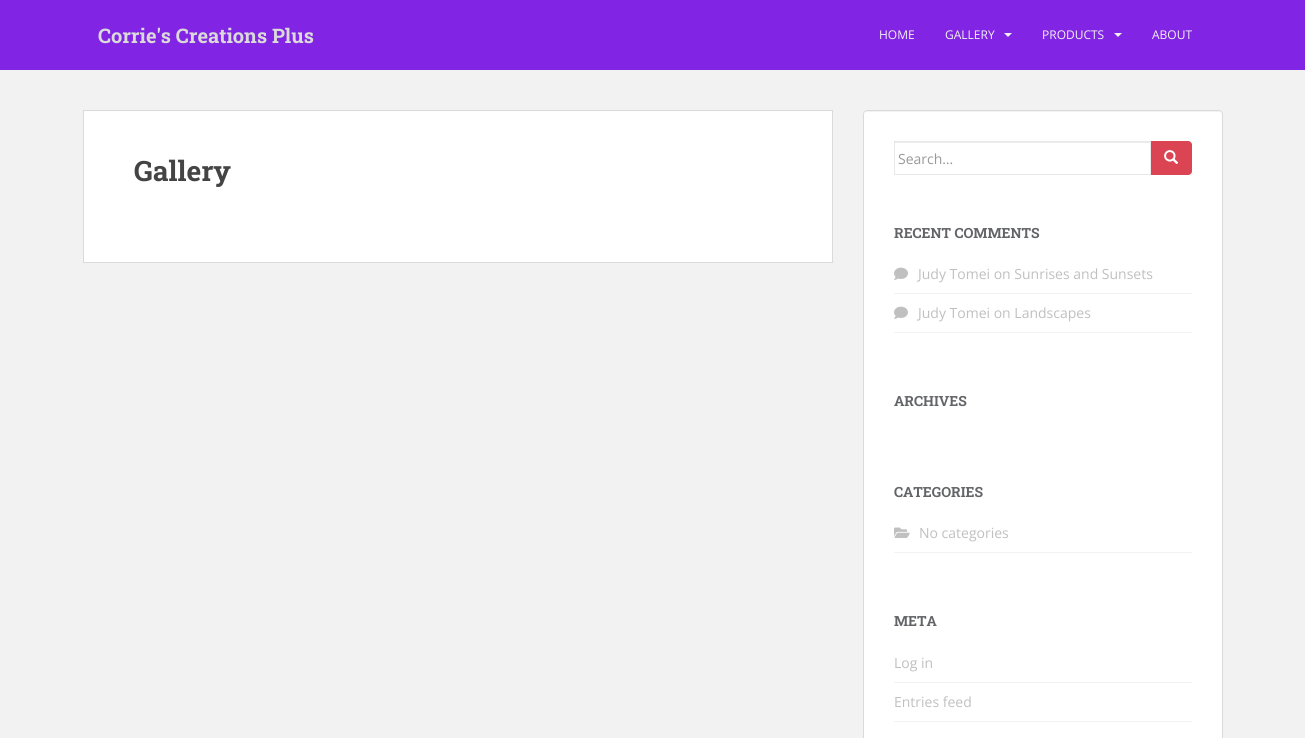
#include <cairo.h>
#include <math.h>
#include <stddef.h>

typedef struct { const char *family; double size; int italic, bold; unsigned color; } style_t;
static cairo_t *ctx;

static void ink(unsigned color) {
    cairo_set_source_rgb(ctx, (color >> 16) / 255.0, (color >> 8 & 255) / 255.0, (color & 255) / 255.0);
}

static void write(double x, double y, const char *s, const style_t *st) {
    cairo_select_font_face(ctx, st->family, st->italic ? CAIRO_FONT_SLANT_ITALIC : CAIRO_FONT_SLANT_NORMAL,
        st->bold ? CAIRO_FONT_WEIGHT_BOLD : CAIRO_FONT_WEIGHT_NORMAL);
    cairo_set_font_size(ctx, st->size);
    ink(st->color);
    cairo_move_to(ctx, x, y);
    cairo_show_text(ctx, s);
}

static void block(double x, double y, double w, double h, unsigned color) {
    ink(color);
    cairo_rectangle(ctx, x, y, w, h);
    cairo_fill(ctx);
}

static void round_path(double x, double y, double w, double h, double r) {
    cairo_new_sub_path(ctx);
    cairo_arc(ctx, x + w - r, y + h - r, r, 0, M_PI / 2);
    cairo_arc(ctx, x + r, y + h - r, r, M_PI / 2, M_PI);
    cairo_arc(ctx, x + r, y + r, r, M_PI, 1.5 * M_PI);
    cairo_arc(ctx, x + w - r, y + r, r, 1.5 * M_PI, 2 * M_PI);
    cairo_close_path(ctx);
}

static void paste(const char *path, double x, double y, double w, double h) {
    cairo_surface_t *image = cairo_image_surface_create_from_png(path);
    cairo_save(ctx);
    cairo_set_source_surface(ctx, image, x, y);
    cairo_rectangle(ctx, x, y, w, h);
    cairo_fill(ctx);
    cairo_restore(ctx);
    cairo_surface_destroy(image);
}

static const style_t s1 = {"Roboto Slab", 20, 0, 1, 0xdadada};
static const style_t s2 = {"Open Sans", 12, 0, 0, 0xf2f2f2};
static const style_t s3 = {"Roboto Slab", 28, 0, 1, 0x444444};
static const style_t s4 = {"Open Sans", 14, 0, 0, 0x999999};
static const style_t s5 = {"Roboto Slab", 14, 0, 1, 0x636467};
static const style_t s6 = {"Open Sans", 14, 0, 0, 0xc1c0c0};

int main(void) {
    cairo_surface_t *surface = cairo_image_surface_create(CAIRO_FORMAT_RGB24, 1305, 738);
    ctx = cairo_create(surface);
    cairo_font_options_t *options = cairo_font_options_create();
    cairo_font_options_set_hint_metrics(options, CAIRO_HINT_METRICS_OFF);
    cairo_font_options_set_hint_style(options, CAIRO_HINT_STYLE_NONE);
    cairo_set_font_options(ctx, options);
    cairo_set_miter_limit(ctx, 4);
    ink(0xf2f2f2);
    cairo_paint(ctx);
    block(0, 0, 1305, 70, 0x8224e3);
    write(98, 43, "Corrie's Creations Plus", &s1);
    write(879, 39, "HOME", &s2);
    write(945, 39, "GALLERY", &s2);
    cairo_new_path(ctx);
    cairo_move_to(ctx, 1004, 33);
    cairo_line_to(ctx, 1012, 33);
    cairo_line_to(ctx, 1008, 37);
    cairo_close_path(ctx);
    cairo_fill(ctx);
    write(1042, 39, "PRODUCTS", &s2);
    cairo_new_path(ctx);
    cairo_move_to(ctx, 1114, 33);
    cairo_line_to(ctx, 1122, 33);
    cairo_line_to(ctx, 1118, 37);
    cairo_close_path(ctx);
    cairo_fill(ctx);
    write(1152, 39, "ABOUT", &s2);
    ink(0xffffff);
    cairo_rectangle(ctx, 83.5, 110.5, 749, 152);
    cairo_fill_preserve(ctx);
    ink(0xdadada);
    cairo_set_line_width(ctx, 1);
    cairo_stroke(ctx);
    write(134, 181, "Gallery", &s3);
    ink(0xffffff);
    round_path(863, 110, 360, 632, 4);
    cairo_fill(ctx);
    ink(0xf2f2f2);
    cairo_new_path(ctx);
    cairo_move_to(ctx, 867, 112);
    cairo_line_to(ctx, 1219, 112);
    cairo_curve_to(ctx, 1221, 112, 1222, 113, 1222, 115);
    cairo_curve_to(ctx, 1222, 113, 1221, 111, 1219, 111);
    cairo_line_to(ctx, 867, 111);
    cairo_line_to(ctx, 865, 112);
    cairo_line_to(ctx, 864, 115);
    cairo_curve_to(ctx, 864, 113, 865, 112, 867, 112);
    cairo_close_path(ctx);
    cairo_fill(ctx);
    round_path(863.5, 110.5, 359, 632, 3.5);
    ink(0xdadada);
    cairo_stroke(ctx);
    block(895, 142, 255, 1, 0xececec);
    cairo_rectangle(ctx, 894.5, 141.5, 256, 33);
    ink(0xe8e8e8);
    cairo_stroke(ctx);
    write(898, 164, "Search…", &s4);
    ink(0xda4453);
    cairo_new_path(ctx);
    cairo_move_to(ctx, 1151.5, 141.5);
    cairo_line_to(ctx, 1188, 141.5);
    cairo_curve_to(ctx, 1190, 141.5, 1191.5, 143, 1191.5, 145);
    cairo_line_to(ctx, 1191.5, 171);
    cairo_curve_to(ctx, 1191.5, 173, 1190, 174.5, 1188, 174.5);
    cairo_line_to(ctx, 1151.5, 174.5);
    cairo_close_path(ctx);
    cairo_fill_preserve(ctx);
    cairo_stroke(ctx);
    paste("pic1.png", 1164, 150, 15, 14);
    write(894, 238, "RECENT COMMENTS", &s5);
    block(894, 293, 298, 1, 0xf2f2f2);
    paste("pic2.png", 894, 267, 14, 13);
    write(918, 279, "Judy Tomei on Sunrises and Sunsets", &s6);
    block(894, 332, 298, 1, 0xf2f2f2);
    paste("pic2.png", 894, 306, 14, 13);
    write(918, 318, "Judy Tomei on Landscapes", &s6);
    write(894, 406, "ARCHIVES", &s5);
    write(894, 497, "CATEGORIES", &s5);
    block(894, 552, 298, 1, 0xf2f2f2);
    paste("pic3.png", 894, 527, 16, 11);
    write(919, 538, "No categories", &s6);
    write(894, 626, "META", &s5);
    block(894, 682, 298, 1, 0xf2f2f2);
    write(894, 668, "Log in", &s6);
    block(894, 721, 298, 1, 0xf2f2f2);
    write(894, 707, "Entries feed", &s6);
    cairo_surface_write_to_png(surface, "screenshot.png");
    cairo_font_options_destroy(options);
    cairo_destroy(ctx);
    cairo_surface_destroy(surface);
    return 0;
}
